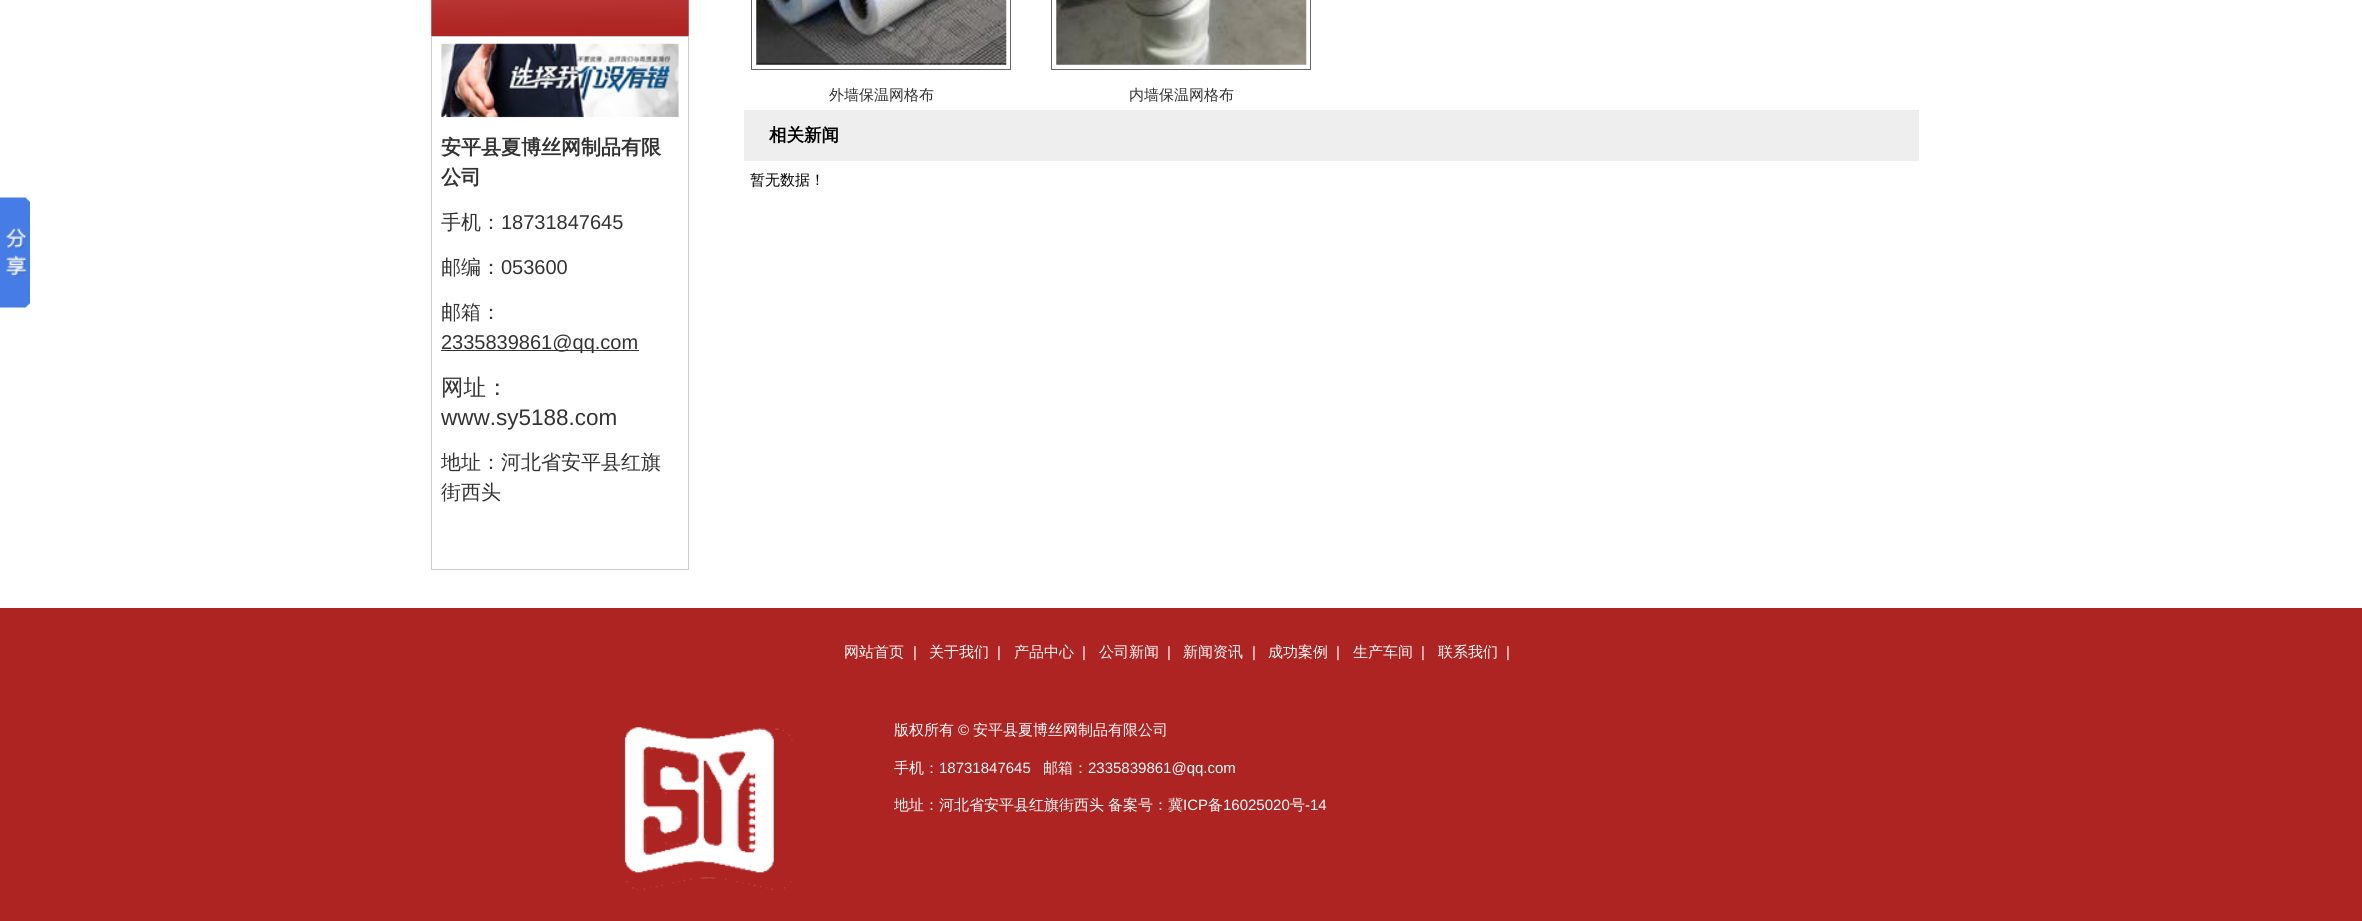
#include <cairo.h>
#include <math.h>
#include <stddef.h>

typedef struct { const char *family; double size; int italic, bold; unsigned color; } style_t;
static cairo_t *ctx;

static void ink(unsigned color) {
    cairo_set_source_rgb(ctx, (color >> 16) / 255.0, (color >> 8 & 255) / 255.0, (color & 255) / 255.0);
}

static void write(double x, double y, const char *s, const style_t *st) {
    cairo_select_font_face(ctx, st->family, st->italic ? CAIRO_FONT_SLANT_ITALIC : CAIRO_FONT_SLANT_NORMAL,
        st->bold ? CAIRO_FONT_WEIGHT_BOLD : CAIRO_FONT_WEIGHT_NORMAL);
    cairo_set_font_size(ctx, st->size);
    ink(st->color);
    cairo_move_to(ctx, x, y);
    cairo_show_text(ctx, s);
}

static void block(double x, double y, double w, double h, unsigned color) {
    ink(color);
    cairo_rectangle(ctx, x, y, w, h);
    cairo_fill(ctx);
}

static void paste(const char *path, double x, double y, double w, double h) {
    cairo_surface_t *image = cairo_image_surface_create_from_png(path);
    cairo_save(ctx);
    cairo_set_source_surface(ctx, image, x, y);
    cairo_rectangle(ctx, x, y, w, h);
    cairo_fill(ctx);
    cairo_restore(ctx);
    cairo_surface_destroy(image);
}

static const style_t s1 = {"WenQuanYi Zen Hei", 20, 0, 1, 0x333333};
static const style_t s2 = {"WenQuanYi Zen Hei Medium", 20, 0, 0, 0x333333};
static const style_t s3 = {"Liberation Sans", 20, 0, 0, 0x333333};
static const style_t s4 = {"WenQuanYi Zen Hei Medium", 22.5, 0, 0, 0x333333};
static const style_t s5 = {"Liberation Sans", 22.5, 0, 0, 0x333333};
static const style_t s6 = {"WenQuanYi Zen Hei Medium", 15, 0, 0, 0x333333};
static const style_t s7 = {"WenQuanYi Zen Hei", 17.5, 0, 1, 0x000000};
static const style_t s8 = {"WenQuanYi Zen Hei Medium", 15, 0, 0, 0x000000};
static const style_t s9 = {"WenQuanYi Zen Hei Medium", 15, 0, 0, 0xffffff};
static const style_t s10 = {"Liberation Sans", 15, 0, 0, 0xffffff};

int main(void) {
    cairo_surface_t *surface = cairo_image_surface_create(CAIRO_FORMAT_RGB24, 2362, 921);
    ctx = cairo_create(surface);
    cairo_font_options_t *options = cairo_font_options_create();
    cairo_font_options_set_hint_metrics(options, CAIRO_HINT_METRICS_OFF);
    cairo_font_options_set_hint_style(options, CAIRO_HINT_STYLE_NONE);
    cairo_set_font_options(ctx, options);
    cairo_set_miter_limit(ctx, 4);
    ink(0xffffff);
    cairo_paint(ctx);
    paste("pic1.png", 0, 197, 30, 111);
    paste("pic2.png", 431, 0, 258, 36);
    cairo_rectangle(ctx, 431.5, 36.5, 257, 533);
    ink(0xcccccc);
    cairo_set_line_width(ctx, 1);
    cairo_stroke(ctx);
    paste("pic3.png", 441, 43, 238, 75);
    write(441, 154, "安平县夏博丝网制品有限", &s1);
    write(441, 184, "公司", &s1);
    write(441, 229, "手机：", &s2);
    write(501, 229, "18731847645", &s3);
    write(441, 274, "邮编：", &s2);
    write(501, 274, "053600", &s3);
    write(441, 319, "邮箱：", &s2);
    block(441, 350, 198, 1, 0x333333);
    write(441, 349, "2335839861@qq.com", &s3);
    write(441, 395, "网址：", &s4);
    write(441, 425, "www.sy5188.com", &s5);
    write(441, 469, "地址：河北省安平县红旗", &s2);
    write(441, 499, "街西头", &s2);
    cairo_rectangle(ctx, 751.5, -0.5, 259, 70);
    ink(0x666666);
    cairo_stroke(ctx);
    paste("pic4.png", 756, 0, 251, 65);
    write(829, 100, "外墙保温网格布", &s6);
    cairo_rectangle(ctx, 1051.5, -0.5, 259, 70);
    ink(0x666666);
    cairo_stroke(ctx);
    paste("pic5.png", 1056, 0, 251, 65);
    write(1129, 100, "内墙保温网格布", &s6);
    block(744, 110, 1175, 51, 0xeeeeee);
    write(769, 141, "相关新闻", &s7);
    write(750, 185, "暂无数据！", &s8);
    block(0, 608, 2362, 313, 0xae2422);
    write(844, 657, "网站首页", &s9);
    write(913, 657, "|", &s10);
    write(929, 657, "关于我们", &s9);
    write(997, 657, "|", &s10);
    write(1014, 657, "产品中心", &s9);
    write(1082, 657, "|", &s10);
    write(1099, 657, "公司新闻", &s9);
    write(1167, 657, "|", &s10);
    write(1183, 657, "新闻资讯", &s9);
    write(1252, 657, "|", &s10);
    write(1268, 657, "成功案例", &s9);
    write(1336, 657, "|", &s10);
    write(1353, 657, "生产车间", &s9);
    write(1421, 657, "|", &s10);
    write(1438, 657, "联系我们", &s9);
    write(1506, 657, "|", &s10);
    paste("pic6.png", 624, 727, 169, 163);
    write(894, 735, "版权所有", &s9);
    write(958, 735, "©", &s10);
    write(973, 735, "安平县夏博丝网制品有限公司", &s9);
    write(894, 773, "手机：", &s9);
    write(939, 773, "18731847645", &s10);
    write(1043, 773, "邮箱：", &s9);
    write(1088, 773, "2335839861@qq.com", &s10);
    write(894, 810, "地址：河北省安平县红旗街西头", &s9);
    write(1108, 810, "备案号：冀", &s9);
    write(1183, 810, "ICP", &s10);
    write(1208, 810, "备", &s9);
    write(1223, 810, "16025020", &s10);
    write(1290, 810, "号", &s9);
    write(1305, 810, "-14", &s10);
    cairo_surface_write_to_png(surface, "screenshot.png");
    cairo_font_options_destroy(options);
    cairo_destroy(ctx);
    cairo_surface_destroy(surface);
    return 0;
}
